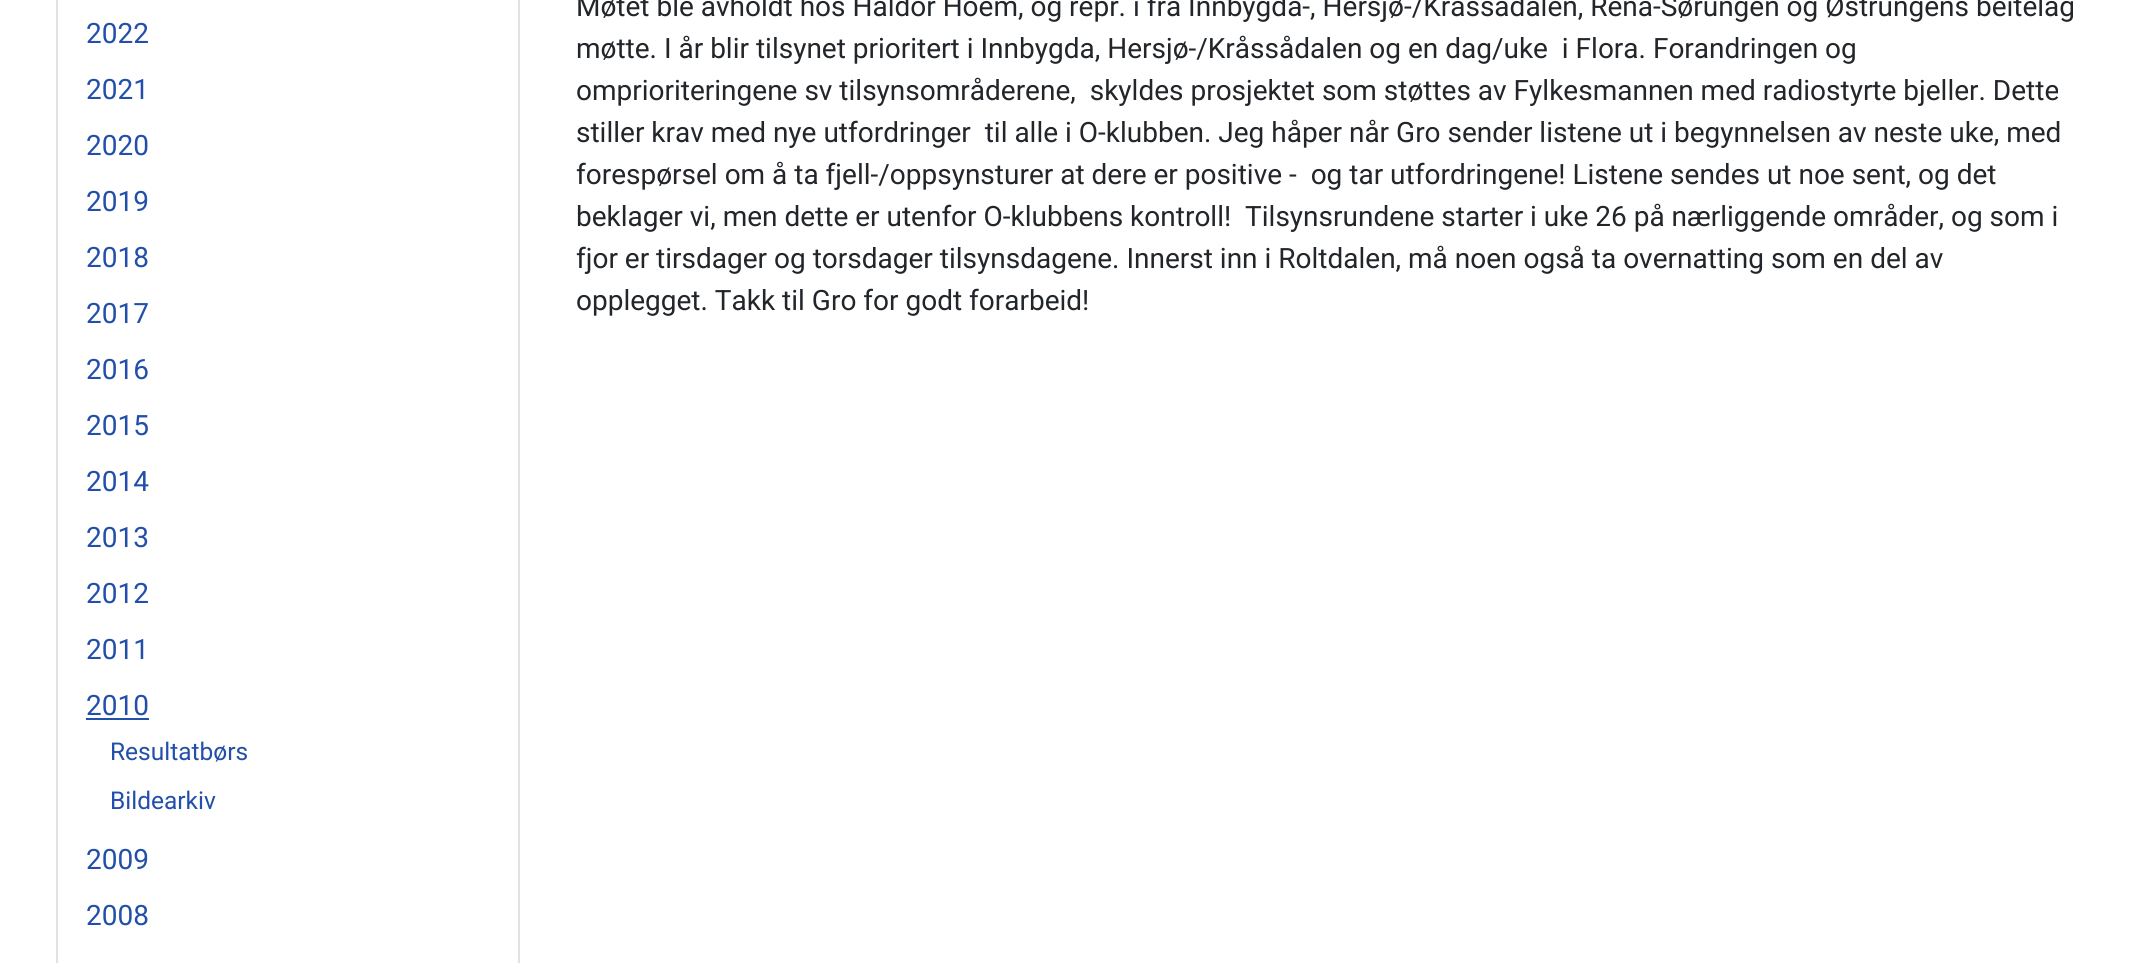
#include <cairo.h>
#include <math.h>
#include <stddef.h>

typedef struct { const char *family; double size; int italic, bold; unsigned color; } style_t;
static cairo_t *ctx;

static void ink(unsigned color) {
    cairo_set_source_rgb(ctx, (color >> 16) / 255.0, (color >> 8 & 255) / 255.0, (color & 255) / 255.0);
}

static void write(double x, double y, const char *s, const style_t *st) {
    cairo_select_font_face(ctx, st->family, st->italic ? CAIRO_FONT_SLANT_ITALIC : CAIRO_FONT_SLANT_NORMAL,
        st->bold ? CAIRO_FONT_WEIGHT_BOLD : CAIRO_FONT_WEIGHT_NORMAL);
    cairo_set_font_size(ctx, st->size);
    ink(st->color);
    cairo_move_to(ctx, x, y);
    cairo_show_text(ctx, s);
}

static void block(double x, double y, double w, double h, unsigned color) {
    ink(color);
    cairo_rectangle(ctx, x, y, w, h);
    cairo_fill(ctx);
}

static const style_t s1 = {"Roboto", 28, 0, 0, 0x224faa};
static const style_t s2 = {"Roboto", 24.5, 0, 0, 0x224faa};
static const style_t s3 = {"Roboto", 28, 0, 0, 0x22262a};

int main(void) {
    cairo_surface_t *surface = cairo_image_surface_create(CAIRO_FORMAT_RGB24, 2136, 963);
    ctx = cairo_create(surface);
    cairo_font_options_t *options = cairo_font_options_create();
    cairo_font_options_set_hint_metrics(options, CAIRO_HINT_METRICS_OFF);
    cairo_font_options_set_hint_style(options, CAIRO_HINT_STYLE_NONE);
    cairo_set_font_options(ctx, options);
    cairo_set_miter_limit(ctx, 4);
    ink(0xffffff);
    cairo_paint(ctx);
    cairo_rectangle(ctx, 57, -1, 462, 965);
    ink(0xdfe3e7);
    cairo_stroke(ctx);
    write(86, 43, "2022", &s1);
    write(86, 99, "2021", &s1);
    write(86, 155, "2020", &s1);
    write(86, 211, "2019", &s1);
    write(86, 267, "2018", &s1);
    write(86, 323, "2017", &s1);
    write(86, 379, "2016", &s1);
    write(86, 435, "2015", &s1);
    write(86, 491, "2014", &s1);
    write(86, 547, "2013", &s1);
    write(86, 603, "2012", &s1);
    write(86, 659, "2011", &s1);
    write(86, 715, "2010", &s1);
    block(86, 718, 63, 2, 0x224faa);
    write(110, 760, "Resultatbørs", &s2);
    write(110, 809, "Bildearkiv", &s2);
    write(86, 869, "2009", &s1);
    write(86, 925, "2008", &s1);
    write(576, 16, "Møtet ble avholdt hos Haldor Hoem, og repr. i fra Innbygda-, Hersjø-/Kråssådalen, Renå-Sørungen og Østrungens beitelag", &s3);
    write(576, 58, "møtte. I år blir tilsynet prioritert i Innbygda, Hersjø-/Kråssådalen og en dag/uke  i Flora. Forandringen og", &s3);
    write(576, 100, "omprioriteringene sv tilsynsområderene,  skyldes prosjektet som støttes av Fylkesmannen med radiostyrte bjeller. Dette", &s3);
    write(576, 142, "stiller krav med nye utfordringer  til alle i O-klubben. Jeg håper når Gro sender listene ut i begynnelsen av neste uke, med", &s3);
    write(576, 184, "forespørsel om å ta fjell-/oppsynsturer at dere er positive -  og tar utfordringene! Listene sendes ut noe sent, og det", &s3);
    write(576, 226, "beklager vi, men dette er utenfor O-klubbens kontroll!  Tilsynsrundene starter i uke 26 på nærliggende områder, og som i", &s3);
    write(576, 268, "fjor er tirsdager og torsdager tilsynsdagene. Innerst inn i Roltdalen, må noen også ta overnatting som en del av", &s3);
    write(576, 310, "opplegget. Takk til Gro for godt forarbeid!", &s3);
    cairo_surface_write_to_png(surface, "screenshot.png");
    cairo_font_options_destroy(options);
    cairo_destroy(ctx);
    cairo_surface_destroy(surface);
    return 0;
}
